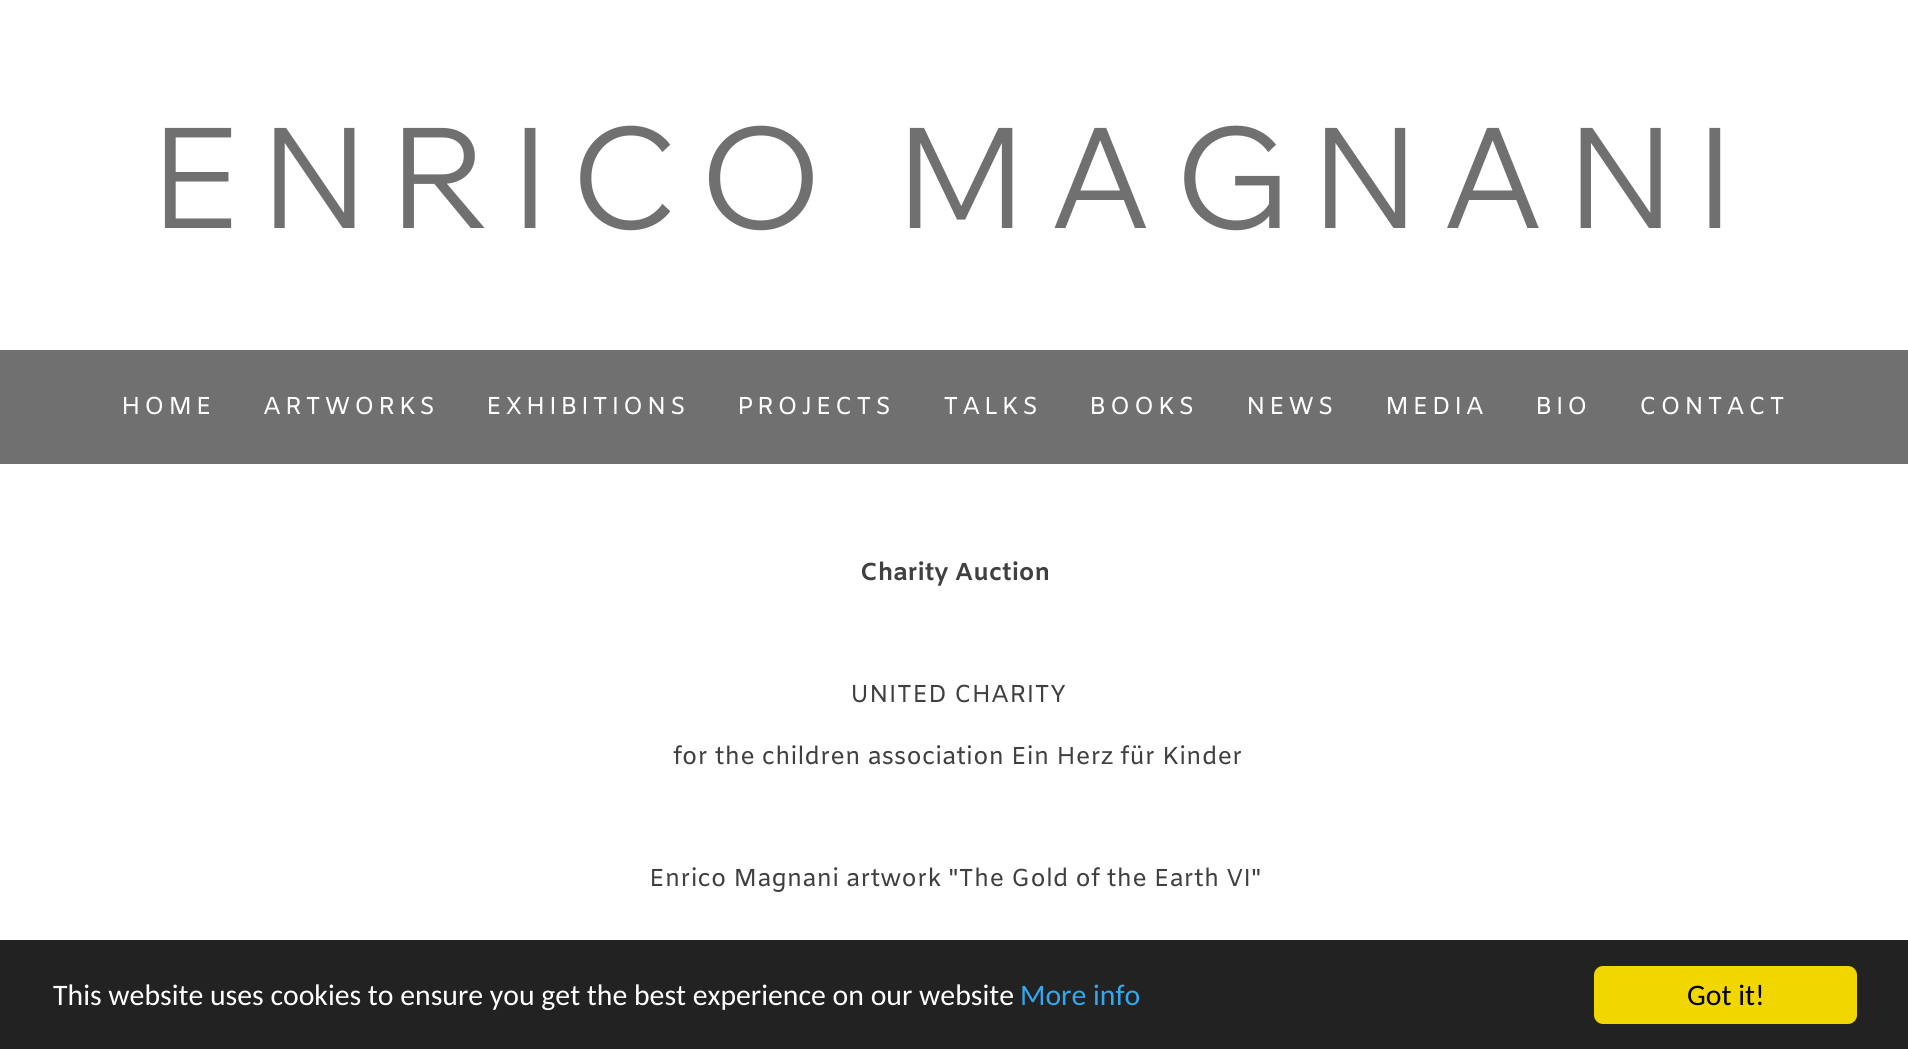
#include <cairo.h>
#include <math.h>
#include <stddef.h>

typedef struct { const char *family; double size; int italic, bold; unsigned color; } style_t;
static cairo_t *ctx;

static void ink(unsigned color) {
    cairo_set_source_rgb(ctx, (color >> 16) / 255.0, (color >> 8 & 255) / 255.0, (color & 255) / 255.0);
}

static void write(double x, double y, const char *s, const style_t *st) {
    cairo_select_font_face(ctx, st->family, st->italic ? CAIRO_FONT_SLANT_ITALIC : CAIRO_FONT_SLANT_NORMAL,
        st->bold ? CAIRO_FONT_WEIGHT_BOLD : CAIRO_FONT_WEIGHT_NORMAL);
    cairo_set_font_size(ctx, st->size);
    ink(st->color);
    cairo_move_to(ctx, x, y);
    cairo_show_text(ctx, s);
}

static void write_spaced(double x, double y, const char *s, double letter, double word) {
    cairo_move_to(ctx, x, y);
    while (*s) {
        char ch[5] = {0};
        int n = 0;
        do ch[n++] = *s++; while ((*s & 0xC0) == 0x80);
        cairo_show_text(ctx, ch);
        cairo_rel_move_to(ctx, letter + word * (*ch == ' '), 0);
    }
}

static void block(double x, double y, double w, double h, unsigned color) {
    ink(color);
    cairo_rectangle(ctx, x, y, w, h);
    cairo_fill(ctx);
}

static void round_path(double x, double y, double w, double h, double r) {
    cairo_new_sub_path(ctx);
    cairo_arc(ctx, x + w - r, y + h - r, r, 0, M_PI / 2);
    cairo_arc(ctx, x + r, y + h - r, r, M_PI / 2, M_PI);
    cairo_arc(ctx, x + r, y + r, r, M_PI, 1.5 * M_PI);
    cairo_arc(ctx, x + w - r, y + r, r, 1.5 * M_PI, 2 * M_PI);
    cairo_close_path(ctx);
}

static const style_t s1 = {"Amiko", 24.5, 0, 1, 0x404040};
static const style_t s2 = {"Amiko", 24.5, 0, 0, 0x404040};
static const style_t s3 = {"Carlito", 29.75, 0, 0, 0xffffff};
static const style_t s4 = {"Carlito", 29.75, 0, 0, 0x31a8f0};
static const style_t s5 = {"Carlito", 29.75, 0, 0, 0x000000};

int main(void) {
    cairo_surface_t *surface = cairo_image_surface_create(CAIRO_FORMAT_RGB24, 1908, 1049);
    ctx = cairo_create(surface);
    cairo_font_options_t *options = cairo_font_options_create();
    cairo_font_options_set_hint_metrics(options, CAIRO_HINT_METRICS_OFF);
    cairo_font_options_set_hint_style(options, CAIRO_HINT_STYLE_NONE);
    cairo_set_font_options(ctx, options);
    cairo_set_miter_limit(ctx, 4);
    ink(0xffffff);
    cairo_paint(ctx);
    cairo_select_font_face(ctx, "Wix Madefor Display", CAIRO_FONT_SLANT_NORMAL, CAIRO_FONT_WEIGHT_NORMAL);
    cairo_set_font_size(ctx, 140);
    ink(0x707070);
    write_spaced(153, 228, "ENRICO MAGNANI", 25.25, 0);
    block(0, 350, 1908, 114, 0x707070);
    cairo_select_font_face(ctx, "Amiko", CAIRO_FONT_SLANT_NORMAL, CAIRO_FONT_WEIGHT_NORMAL);
    cairo_set_font_size(ctx, 24.5);
    ink(0xffffff);
    write_spaced(121, 414, "HOME", 3.5, 0);
    write_spaced(263, 414, "ARTWORKS", 3.5, 0);
    write_spaced(486, 414, "EXHIBITIONS", 3.5, 0);
    write_spaced(737, 414, "PROJECTS", 3.5, 0);
    write_spaced(943, 414, "TALKS", 3.5, 0);
    write_spaced(1089, 414, "BOOKS", 3.5, 0);
    write_spaced(1246, 414, "NEWS", 3.5, 0);
    write_spaced(1385, 414, "MEDIA", 3.5, 0);
    write_spaced(1535, 414, "BIO", 3.5, 0);
    write_spaced(1639, 414, "CONTACT", 3.5, 0);
    write(860, 580, "Charity Auction", &s1);
    write(850, 702, "UNITED CHARITY", &s2);
    write(673, 764, "for the children association Ein Herz für Kinder", &s2);
    write(649, 886, "Enrico Magnani artwork \"The Gold of the Earth VI\"", &s2);
    block(0, 940, 1908, 109, 0x222222);
    write(53, 1005, "This website uses cookies to ensure you get the best experience on our website", &s3);
    write(1020, 1005, "More info", &s4);
    ink(0xf1d600);
    round_path(1594, 966, 263, 58, 9);
    cairo_fill(ctx);
    write(1687, 1005, "Got it!", &s5);
    cairo_surface_write_to_png(surface, "screenshot.png");
    cairo_font_options_destroy(options);
    cairo_destroy(ctx);
    cairo_surface_destroy(surface);
    return 0;
}
